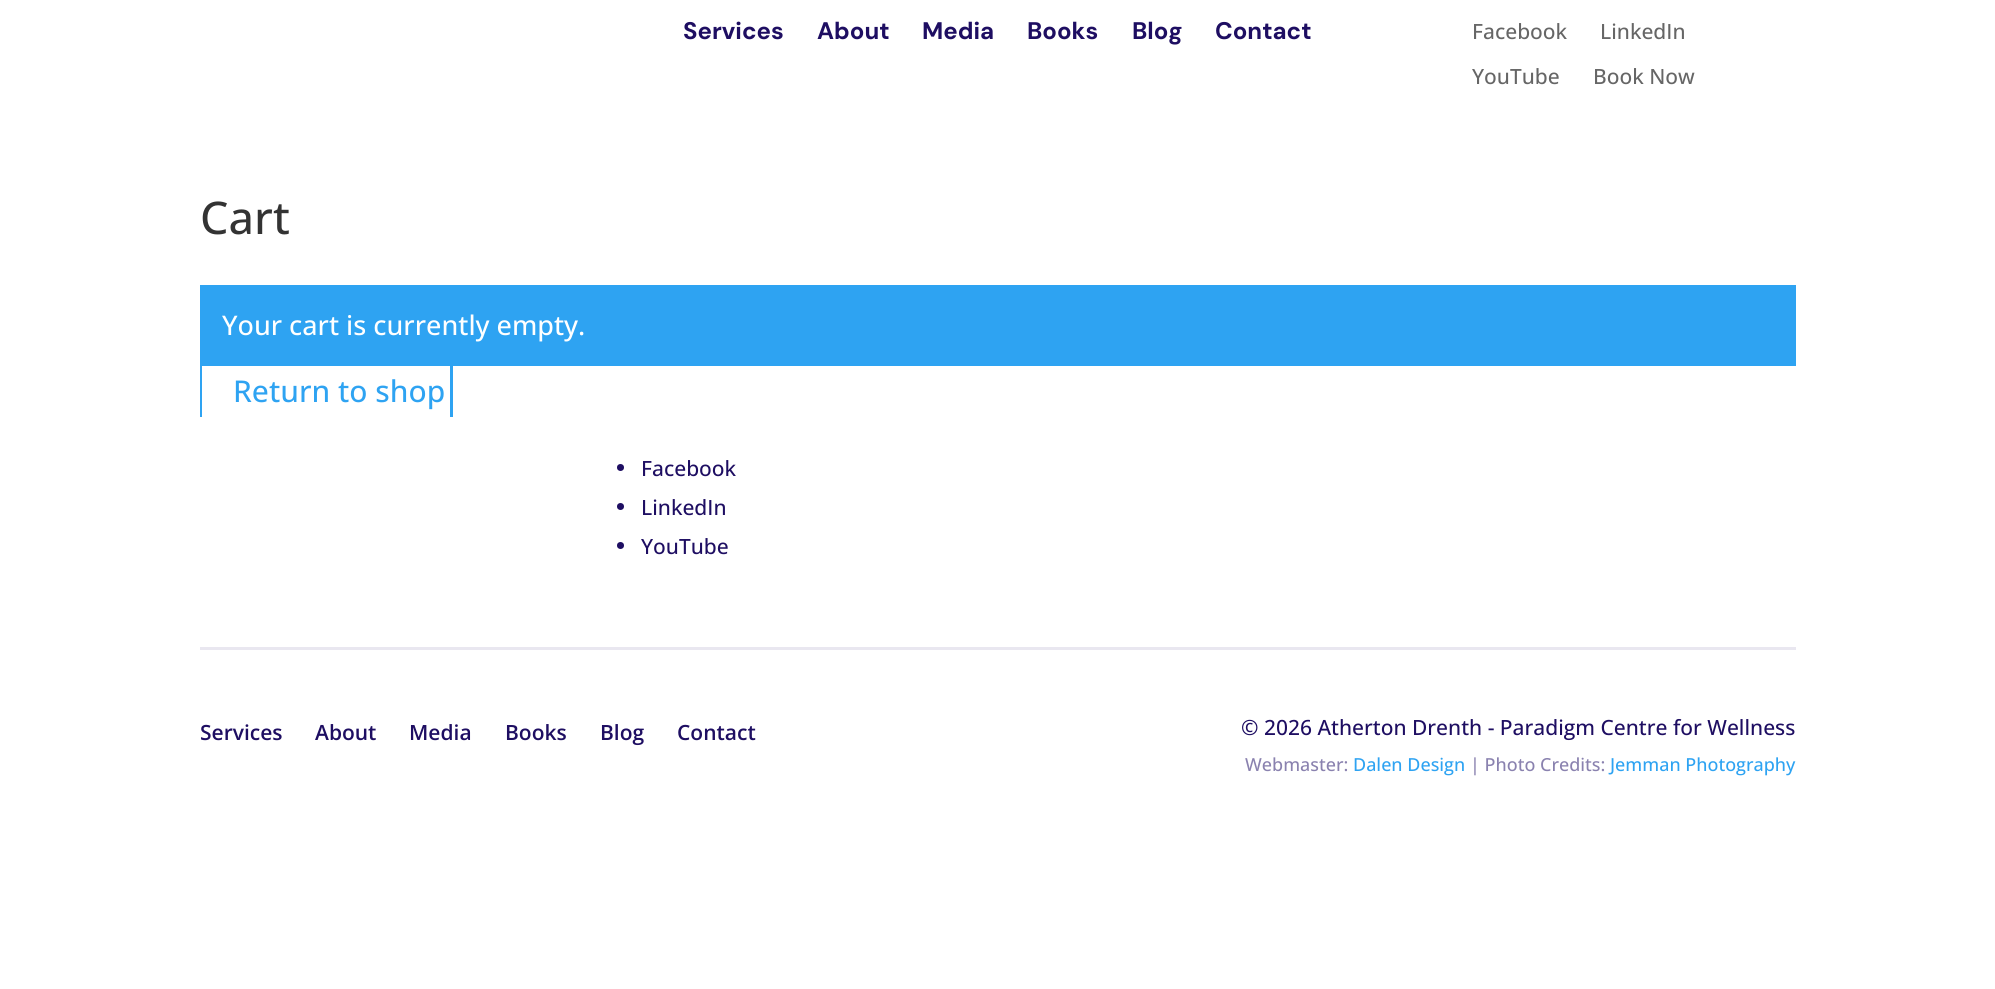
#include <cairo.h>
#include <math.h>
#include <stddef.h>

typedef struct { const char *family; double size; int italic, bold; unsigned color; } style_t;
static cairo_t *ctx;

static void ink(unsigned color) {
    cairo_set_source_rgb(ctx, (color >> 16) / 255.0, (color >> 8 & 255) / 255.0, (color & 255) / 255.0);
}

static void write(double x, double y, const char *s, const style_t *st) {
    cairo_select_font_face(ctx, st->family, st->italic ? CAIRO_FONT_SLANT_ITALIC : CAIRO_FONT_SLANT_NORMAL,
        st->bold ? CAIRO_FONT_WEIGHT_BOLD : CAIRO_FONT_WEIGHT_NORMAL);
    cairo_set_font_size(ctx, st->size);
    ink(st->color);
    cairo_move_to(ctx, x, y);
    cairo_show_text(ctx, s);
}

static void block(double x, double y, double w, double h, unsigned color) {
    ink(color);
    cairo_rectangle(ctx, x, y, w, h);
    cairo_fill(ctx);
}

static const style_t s1 = {"DM Sans", 24, 0, 1, 0x1e0e62};
static const style_t s2 = {"Open Sans Medium", 21, 0, 0, 0x666666};
static const style_t s3 = {"Open Sans Medium", 45, 0, 0, 0x333333};
static const style_t s4 = {"Open Sans Medium", 27, 0, 0, 0xffffff};
static const style_t s5 = {"Open Sans Medium", 30, 0, 0, 0x2ea3f2};
static const style_t s6 = {"Open Sans Medium", 21, 0, 0, 0x1e0e62};
static const style_t s7 = {"Open Sans SemiBold", 21, 0, 0, 0x1e0e62};
static const style_t s8 = {"Open Sans Medium", 18, 0, 0, 0x8a82af};
static const style_t s9 = {"Open Sans Medium", 18, 0, 0, 0x2ea3f2};

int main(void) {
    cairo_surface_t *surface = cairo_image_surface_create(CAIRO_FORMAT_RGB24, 1995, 989);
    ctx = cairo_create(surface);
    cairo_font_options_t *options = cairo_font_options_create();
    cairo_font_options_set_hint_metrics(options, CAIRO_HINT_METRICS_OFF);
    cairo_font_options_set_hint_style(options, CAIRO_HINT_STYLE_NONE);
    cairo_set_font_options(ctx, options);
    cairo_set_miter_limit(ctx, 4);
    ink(0xffffff);
    cairo_paint(ctx);
    write(683, 39, "Services", &s1);
    write(817, 39, "About", &s1);
    write(922, 39, "Media", &s1);
    write(1027, 39, "Books", &s1);
    write(1132, 39, "Blog", &s1);
    write(1215, 39, "Contact", &s1);
    write(1472, 39, "Facebook", &s2);
    write(1600, 39, "LinkedIn", &s2);
    write(1472, 84, "YouTube", &s2);
    write(1593, 84, "Book Now", &s2);
    write(200, 234, "Cart", &s3);
    block(200, 285, 1596, 81, 0x2ea3f2);
    write(222, 335, "Your cart is currently empty.", &s4);
    ink(0x2ea3f2);
    cairo_set_fill_rule(ctx, CAIRO_FILL_RULE_EVEN_ODD);
    cairo_new_path(ctx);
    cairo_move_to(ctx, 204, 358);
    cairo_line_to(ctx, 444, 358);
    cairo_line_to(ctx, 444, 423);
    cairo_line_to(ctx, 204, 423);
    cairo_curve_to(ctx, 202, 423, 200, 421, 200, 418);
    cairo_line_to(ctx, 200, 363);
    cairo_curve_to(ctx, 200, 361, 202, 358, 204, 358);
    cairo_close_path(ctx);
    cairo_move_to(ctx, 204, 362);
    cairo_line_to(ctx, 444, 362);
    cairo_line_to(ctx, 444, 420);
    cairo_line_to(ctx, 204, 420);
    cairo_curve_to(ctx, 203, 420, 202, 419, 202, 418);
    cairo_line_to(ctx, 202, 363);
    cairo_curve_to(ctx, 202, 362, 203, 362, 204, 362);
    cairo_close_path(ctx);
    cairo_fill(ctx);
    cairo_new_path(ctx);
    cairo_move_to(ctx, 396, 354);
    cairo_line_to(ctx, 448, 354);
    cairo_curve_to(ctx, 451, 354, 453, 356, 453, 358);
    cairo_line_to(ctx, 453, 422);
    cairo_curve_to(ctx, 453, 424, 451, 426, 448, 426);
    cairo_line_to(ctx, 396, 426);
    cairo_close_path(ctx);
    cairo_move_to(ctx, 396, 357);
    cairo_line_to(ctx, 448, 357);
    cairo_curve_to(ctx, 449, 357, 450, 358, 450, 358);
    cairo_line_to(ctx, 450, 422);
    cairo_curve_to(ctx, 450, 422, 449, 423, 448, 423);
    cairo_line_to(ctx, 396, 423);
    cairo_close_path(ctx);
    cairo_fill(ctx);
    write(233, 402, "Return to shop", &s5);
    block(200, 417, 253, 9, 0xffffff);
    block(200, 647, 1596, 3, 0xe9e7f0);
    ink(0x1e0e62);
    cairo_new_path(ctx);
    cairo_arc(ctx, 620.5, 467.5, 3.5, 0, 2 * M_PI);
    cairo_fill(ctx);
    write(641, 476, "Facebook", &s6);
    cairo_new_path(ctx);
    cairo_arc(ctx, 620.5, 506.5, 3.5, 0, 2 * M_PI);
    cairo_fill(ctx);
    write(641, 515, "LinkedIn", &s6);
    cairo_new_path(ctx);
    cairo_arc(ctx, 620.5, 545.5, 3.5, 0, 2 * M_PI);
    cairo_fill(ctx);
    write(641, 554, "YouTube", &s6);
    write(200, 740, "Services", &s7);
    write(315, 740, "About", &s7);
    write(409, 740, "Media", &s7);
    write(505, 740, "Books", &s7);
    write(600, 740, "Blog", &s7);
    write(677, 740, "Contact", &s7);
    write(1241, 735, "© 2026 Atherton Drenth - Paradigm Centre for Wellness", &s6);
    write(1245, 771, "Webmaster:", &s8);
    write(1353, 771, "Dalen Design", &s9);
    write(1470, 771, "| Photo Credits:", &s8);
    write(1610, 771, "Jemman Photography", &s9);
    cairo_surface_write_to_png(surface, "screenshot.png");
    cairo_font_options_destroy(options);
    cairo_destroy(ctx);
    cairo_surface_destroy(surface);
    return 0;
}
